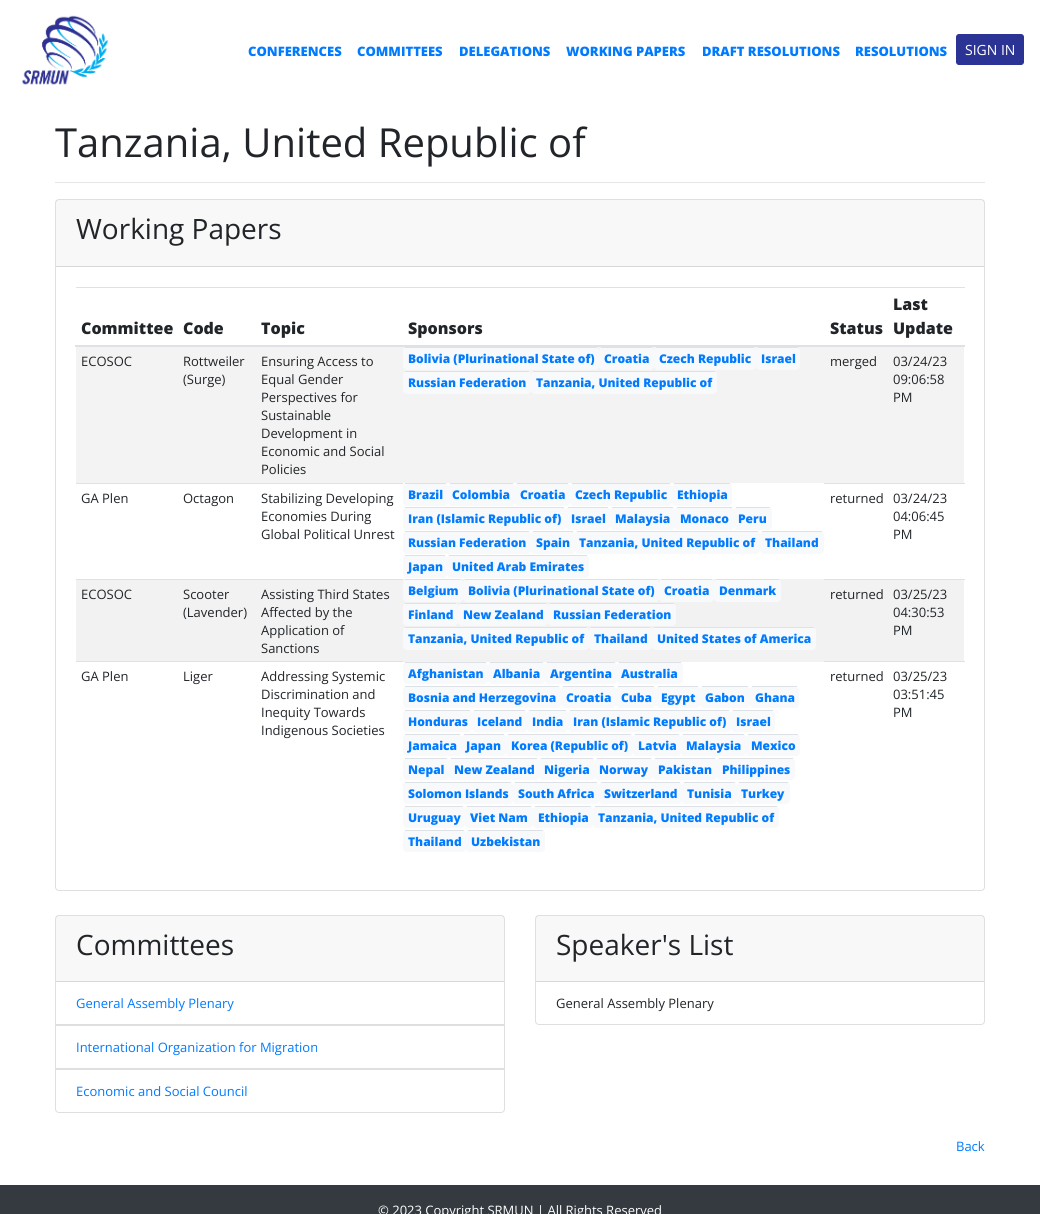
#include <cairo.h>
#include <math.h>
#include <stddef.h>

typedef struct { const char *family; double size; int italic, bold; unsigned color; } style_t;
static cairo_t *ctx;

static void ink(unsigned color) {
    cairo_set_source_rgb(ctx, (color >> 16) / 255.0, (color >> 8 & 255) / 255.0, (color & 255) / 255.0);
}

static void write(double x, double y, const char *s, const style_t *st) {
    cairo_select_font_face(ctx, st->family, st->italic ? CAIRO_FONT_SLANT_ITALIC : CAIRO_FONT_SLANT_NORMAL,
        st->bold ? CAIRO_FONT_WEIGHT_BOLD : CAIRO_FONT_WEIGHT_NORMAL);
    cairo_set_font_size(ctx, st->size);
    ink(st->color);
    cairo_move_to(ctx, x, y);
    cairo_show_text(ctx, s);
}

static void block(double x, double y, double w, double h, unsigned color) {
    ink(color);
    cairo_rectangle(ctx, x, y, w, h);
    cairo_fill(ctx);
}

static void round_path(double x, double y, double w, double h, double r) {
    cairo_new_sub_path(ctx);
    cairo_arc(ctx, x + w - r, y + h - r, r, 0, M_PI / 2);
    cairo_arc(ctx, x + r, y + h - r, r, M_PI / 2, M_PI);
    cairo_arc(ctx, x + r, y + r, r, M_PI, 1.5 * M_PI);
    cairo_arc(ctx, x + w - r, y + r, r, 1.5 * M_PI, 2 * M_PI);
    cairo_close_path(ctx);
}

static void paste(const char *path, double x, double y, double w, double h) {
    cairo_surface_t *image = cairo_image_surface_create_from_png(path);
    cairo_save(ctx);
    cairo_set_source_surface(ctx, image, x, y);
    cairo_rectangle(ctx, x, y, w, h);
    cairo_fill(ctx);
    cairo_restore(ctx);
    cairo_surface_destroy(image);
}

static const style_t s1 = {"Open Sans ExtraBold", 13, 0, 0, 0x007bff};
static const style_t s2 = {"Open Sans", 14, 0, 0, 0xffffff};
static const style_t s3 = {"Open Sans", 40, 0, 0, 0x212529};
static const style_t s4 = {"Open Sans", 28, 0, 0, 0x212529};
static const style_t s5 = {"Open Sans ExtraBold", 16, 0, 0, 0x212529};
static const style_t s6 = {"Open Sans", 13, 0, 0, 0x212529};
static const style_t s7 = {"Open Sans ExtraBold", 12, 0, 0, 0x007bff};
static const style_t s8 = {"Open Sans", 13, 0, 0, 0x007bff};
static const style_t s9 = {"Open Sans", 13, 0, 0, 0xffffff};

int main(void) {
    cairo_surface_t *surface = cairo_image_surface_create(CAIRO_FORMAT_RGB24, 1040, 1214);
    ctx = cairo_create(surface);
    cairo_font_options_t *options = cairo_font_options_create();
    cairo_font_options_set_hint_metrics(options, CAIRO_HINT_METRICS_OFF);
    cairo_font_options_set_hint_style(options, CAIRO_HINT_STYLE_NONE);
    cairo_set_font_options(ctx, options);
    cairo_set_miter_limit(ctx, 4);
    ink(0xffffff);
    cairo_paint(ctx);
    paste("pic1.png", 22, 15, 87, 70);
    write(248, 56, "CONFERENCES", &s1);
    write(357, 56, "COMMITTEES", &s1);
    write(459, 56, "DELEGATIONS", &s1);
    write(566, 56, "WORKING PAPERS", &s1);
    write(702, 56, "DRAFT RESOLUTIONS", &s1);
    write(855, 56, "RESOLUTIONS", &s1);
    ink(0x2b3494);
    round_path(956.5, 34.5, 67, 30, 2.5);
    cairo_fill_preserve(ctx);
    cairo_set_line_width(ctx, 1);
    cairo_stroke(ctx);
    write(965, 55, "SIGN IN", &s2);
    write(55, 157, "Tanzania, United Republic of", &s3);
    block(55, 182, 930, 1, 0xe6e6e6);
    round_path(55.5, 199.5, 929, 691, 3.5);
    ink(0xdfdfdf);
    cairo_stroke(ctx);
    cairo_set_source_rgba(ctx, 0, 0, 0, 0.03);
    cairo_rectangle(ctx, 56, 200, 928, 66);
    cairo_fill(ctx);
    block(56, 266, 928, 1, 0xd8d8d8);
    write(76, 239, "Working Papers", &s4);
    write(81, 334, "Committee", &s5);
    write(183, 334, "Code", &s5);
    write(261, 334, "Topic", &s5);
    write(408, 334, "Sponsors", &s5);
    write(830, 334, "Status", &s5);
    block(76, 287, 889, 1, 0xdee2e6);
    block(75, 345, 890, 2, 0xdee2e6);
    write(893, 310, "Last", &s5);
    write(893, 334, "Update", &s5);
    block(76, 347, 888, 136, 0xf3f3f3);
    write(81, 366, "ECOSOC", &s6);
    write(183, 366, "Rottweiler", &s6);
    write(183, 384, "(Surge)", &s6);
    write(261, 366, "Ensuring Access to", &s6);
    write(261, 384, "Equal Gender", &s6);
    write(261, 402, "Perspectives for", &s6);
    write(261, 420, "Sustainable", &s6);
    write(261, 438, "Development in", &s6);
    write(261, 456, "Economic and Social", &s6);
    write(261, 474, "Policies", &s6);
    ink(0xf8f9fa);
    round_path(403, 347, 196, 23, 4);
    cairo_fill(ctx);
    block(405, 347, 192, 1, 0xdee2e6);
    write(408, 363, "Bolivia (Plurinational State of)", &s7);
    ink(0xf8f9fa);
    round_path(599, 347, 55, 23, 4);
    cairo_fill(ctx);
    block(601, 347, 51, 1, 0xdee2e6);
    write(604, 363, "Croatia", &s7);
    ink(0xf8f9fa);
    round_path(654, 347, 102, 23, 4);
    cairo_fill(ctx);
    block(656, 347, 98, 1, 0xdee2e6);
    write(659, 363, "Czech Republic", &s7);
    ink(0xf8f9fa);
    round_path(756, 347, 44, 23, 4);
    cairo_fill(ctx);
    block(758, 347, 40, 1, 0xdee2e6);
    write(761, 363, "Israel", &s7);
    write(830, 366, "merged", &s6);
    write(893, 366, "03/24/23", &s6);
    write(893, 384, "09:06:58", &s6);
    write(893, 402, "PM", &s6);
    ink(0xf8f9fa);
    round_path(403, 371, 128, 23, 4);
    cairo_fill(ctx);
    block(405, 371, 124, 1, 0xdee2e6);
    write(408, 387, "Russian Federation", &s7);
    ink(0xf8f9fa);
    round_path(531, 371, 186, 23, 4);
    cairo_fill(ctx);
    block(533, 371, 182, 1, 0xdee2e6);
    write(536, 387, "Tanzania, United Republic of", &s7);
    write(81, 503, "GA Plen", &s6);
    write(183, 503, "Octagon", &s6);
    block(76, 483, 327, 1, 0xdee2e6);
    write(261, 503, "Stabilizing Developing", &s6);
    write(261, 521, "Economies During", &s6);
    write(261, 539, "Global Political Unrest", &s6);
    ink(0xf8f9fa);
    round_path(403, 483, 45, 23, 4);
    cairo_fill(ctx);
    block(405, 483, 41, 1, 0xdee2e6);
    write(408, 499, "Brazil", &s7);
    ink(0xf8f9fa);
    round_path(448, 483, 67, 23, 4);
    cairo_fill(ctx);
    block(450, 483, 63, 1, 0xdee2e6);
    write(452, 499, "Colombia", &s7);
    ink(0xf8f9fa);
    round_path(515, 483, 55, 23, 4);
    cairo_fill(ctx);
    block(517, 483, 51, 1, 0xdee2e6);
    write(520, 499, "Croatia", &s7);
    ink(0xf8f9fa);
    round_path(570, 483, 102, 23, 4);
    cairo_fill(ctx);
    block(572, 483, 98, 1, 0xdee2e6);
    write(575, 499, "Czech Republic", &s7);
    ink(0xf8f9fa);
    round_path(672, 483, 60, 23, 4);
    cairo_fill(ctx);
    block(674, 483, 56, 1, 0xdee2e6);
    write(677, 499, "Ethiopia", &s7);
    write(830, 503, "returned", &s6);
    block(824, 483, 141, 1, 0xdee2e6);
    write(893, 503, "03/24/23", &s6);
    write(893, 521, "04:06:45", &s6);
    write(893, 539, "PM", &s6);
    ink(0xf8f9fa);
    round_path(403, 507, 163, 23, 4);
    cairo_fill(ctx);
    block(405, 507, 159, 1, 0xdee2e6);
    write(408, 523, "Iran (Islamic Republic of)", &s7);
    ink(0xf8f9fa);
    round_path(566, 507, 44, 23, 4);
    cairo_fill(ctx);
    block(568, 507, 40, 1, 0xdee2e6);
    write(571, 523, "Israel", &s7);
    ink(0xf8f9fa);
    round_path(610, 507, 65, 23, 4);
    cairo_fill(ctx);
    block(612, 507, 61, 1, 0xdee2e6);
    write(615, 523, "Malaysia", &s7);
    ink(0xf8f9fa);
    round_path(675, 507, 59, 23, 4);
    cairo_fill(ctx);
    block(677, 507, 55, 1, 0xdee2e6);
    write(680, 523, "Monaco", &s7);
    ink(0xf8f9fa);
    round_path(734, 507, 38, 23, 4);
    cairo_fill(ctx);
    block(736, 507, 34, 1, 0xdee2e6);
    write(738, 523, "Peru", &s7);
    ink(0xf8f9fa);
    round_path(403, 531, 128, 23, 4);
    cairo_fill(ctx);
    block(405, 531, 124, 1, 0xdee2e6);
    write(408, 547, "Russian Federation", &s7);
    ink(0xf8f9fa);
    round_path(531, 531, 44, 23, 4);
    cairo_fill(ctx);
    block(533, 531, 40, 1, 0xdee2e6);
    write(536, 547, "Spain", &s7);
    ink(0xf8f9fa);
    round_path(575, 531, 185, 23, 4);
    cairo_fill(ctx);
    block(577, 531, 181, 1, 0xdee2e6);
    write(579, 547, "Tanzania, United Republic of", &s7);
    ink(0xf8f9fa);
    round_path(760, 531, 64, 23, 4);
    cairo_fill(ctx);
    block(762, 531, 60, 1, 0xdee2e6);
    write(765, 547, "Thailand", &s7);
    ink(0xf8f9fa);
    round_path(403, 555, 44, 23, 4);
    cairo_fill(ctx);
    block(405, 555, 40, 1, 0xdee2e6);
    write(408, 571, "Japan", &s7);
    ink(0xf8f9fa);
    round_path(447, 555, 142, 23, 4);
    cairo_fill(ctx);
    block(449, 555, 138, 1, 0xdee2e6);
    write(452, 571, "United Arab Emirates", &s7);
    block(76, 579, 888, 83, 0xf2f2f2);
    write(81, 599, "ECOSOC", &s6);
    write(183, 599, "Scooter", &s6);
    write(183, 617, "(Lavender)", &s6);
    block(76, 579, 327, 1, 0xdee2e6);
    write(261, 599, "Assisting Third States", &s6);
    write(261, 617, "Affected by the", &s6);
    write(261, 635, "Application of", &s6);
    write(261, 653, "Sanctions", &s6);
    ink(0xf8f9fa);
    round_path(403, 579, 60, 23, 4);
    cairo_fill(ctx);
    block(405, 579, 56, 1, 0xdee2e6);
    write(408, 595, "Belgium", &s7);
    ink(0xf8f9fa);
    round_path(463, 579, 196, 23, 4);
    cairo_fill(ctx);
    block(465, 579, 192, 1, 0xdee2e6);
    write(468, 595, "Bolivia (Plurinational State of)", &s7);
    ink(0xf8f9fa);
    round_path(659, 579, 55, 23, 4);
    cairo_fill(ctx);
    block(661, 579, 51, 1, 0xdee2e6);
    write(664, 595, "Croatia", &s7);
    ink(0xf8f9fa);
    round_path(714, 579, 67, 23, 4);
    cairo_fill(ctx);
    block(716, 579, 63, 1, 0xdee2e6);
    write(719, 595, "Denmark", &s7);
    write(830, 599, "returned", &s6);
    block(824, 579, 141, 1, 0xdee2e6);
    write(893, 599, "03/25/23", &s6);
    write(893, 617, "04:30:53", &s6);
    write(893, 635, "PM", &s6);
    ink(0xf8f9fa);
    round_path(403, 603, 55, 23, 4);
    cairo_fill(ctx);
    block(405, 603, 51, 1, 0xdee2e6);
    write(408, 619, "Finland", &s7);
    ink(0xf8f9fa);
    round_path(458, 603, 90, 23, 4);
    cairo_fill(ctx);
    block(460, 603, 86, 1, 0xdee2e6);
    write(463, 619, "New Zealand", &s7);
    ink(0xf8f9fa);
    round_path(548, 603, 128, 23, 4);
    cairo_fill(ctx);
    block(550, 603, 124, 1, 0xdee2e6);
    write(553, 619, "Russian Federation", &s7);
    ink(0xf8f9fa);
    round_path(403, 627, 186, 23, 4);
    cairo_fill(ctx);
    block(405, 627, 182, 1, 0xdee2e6);
    write(408, 643, "Tanzania, United Republic of", &s7);
    ink(0xf8f9fa);
    round_path(589, 627, 63, 23, 4);
    cairo_fill(ctx);
    block(591, 627, 59, 1, 0xdee2e6);
    write(594, 643, "Thailand", &s7);
    ink(0xf8f9fa);
    round_path(652, 627, 164, 23, 4);
    cairo_fill(ctx);
    block(654, 627, 160, 1, 0xdee2e6);
    write(657, 643, "United States of America", &s7);
    write(81, 681, "GA Plen", &s6);
    write(183, 681, "Liger", &s6);
    block(76, 661, 327, 1, 0xdee2e6);
    write(261, 681, "Addressing Systemic", &s6);
    write(261, 699, "Discrimination and", &s6);
    write(261, 717, "Inequity Towards", &s6);
    write(261, 735, "Indigenous Societies", &s6);
    ink(0xf8f9fa);
    round_path(403, 662, 85, 22, 4);
    cairo_fill(ctx);
    block(405, 662, 81, 1, 0xdee2e6);
    write(408, 678, "Afghanistan", &s7);
    ink(0xf8f9fa);
    round_path(488, 662, 57, 22, 4);
    cairo_fill(ctx);
    block(490, 662, 53, 1, 0xdee2e6);
    write(493, 678, "Albania", &s7);
    ink(0xf8f9fa);
    round_path(545, 662, 72, 22, 4);
    cairo_fill(ctx);
    block(547, 662, 68, 1, 0xdee2e6);
    write(550, 678, "Argentina", &s7);
    ink(0xf8f9fa);
    round_path(617, 662, 66, 22, 4);
    cairo_fill(ctx);
    block(619, 662, 62, 1, 0xdee2e6);
    write(621, 678, "Australia", &s7);
    write(830, 681, "returned", &s6);
    block(824, 661, 141, 1, 0xdee2e6);
    write(893, 681, "03/25/23", &s6);
    write(893, 699, "03:51:45", &s6);
    write(893, 717, "PM", &s6);
    ink(0xf8f9fa);
    round_path(403, 686, 158, 22, 4);
    cairo_fill(ctx);
    block(405, 686, 154, 1, 0xdee2e6);
    write(408, 702, "Bosnia and Herzegovina", &s7);
    ink(0xf8f9fa);
    round_path(561, 686, 55, 22, 4);
    cairo_fill(ctx);
    block(563, 686, 51, 1, 0xdee2e6);
    write(566, 702, "Croatia", &s7);
    ink(0xf8f9fa);
    round_path(616, 686, 40, 22, 4);
    cairo_fill(ctx);
    block(618, 686, 36, 1, 0xdee2e6);
    write(621, 702, "Cuba", &s7);
    ink(0xf8f9fa);
    round_path(656, 686, 44, 22, 4);
    cairo_fill(ctx);
    block(658, 686, 40, 1, 0xdee2e6);
    write(661, 702, "Egypt", &s7);
    ink(0xf8f9fa);
    round_path(700, 686, 50, 22, 4);
    cairo_fill(ctx);
    block(702, 686, 46, 1, 0xdee2e6);
    write(705, 702, "Gabon", &s7);
    ink(0xf8f9fa);
    round_path(750, 686, 49, 22, 4);
    cairo_fill(ctx);
    block(752, 686, 45, 1, 0xdee2e6);
    write(755, 702, "Ghana", &s7);
    ink(0xf8f9fa);
    round_path(403, 710, 69, 22, 4);
    cairo_fill(ctx);
    block(405, 710, 65, 1, 0xdee2e6);
    write(408, 726, "Honduras", &s7);
    ink(0xf8f9fa);
    round_path(472, 710, 55, 22, 4);
    cairo_fill(ctx);
    block(474, 710, 51, 1, 0xdee2e6);
    write(477, 726, "Iceland", &s7);
    ink(0xf8f9fa);
    round_path(527, 710, 41, 22, 4);
    cairo_fill(ctx);
    block(529, 710, 37, 1, 0xdee2e6);
    write(532, 726, "India", &s7);
    ink(0xf8f9fa);
    round_path(568, 710, 163, 22, 4);
    cairo_fill(ctx);
    block(570, 710, 159, 1, 0xdee2e6);
    write(573, 726, "Iran (Islamic Republic of)", &s7);
    ink(0xf8f9fa);
    round_path(731, 710, 44, 22, 4);
    cairo_fill(ctx);
    block(733, 710, 40, 1, 0xdee2e6);
    write(736, 726, "Israel", &s7);
    ink(0xf8f9fa);
    round_path(403, 734, 59, 22, 4);
    cairo_fill(ctx);
    block(405, 734, 55, 1, 0xdee2e6);
    write(408, 750, "Jamaica", &s7);
    ink(0xf8f9fa);
    round_path(462, 734, 44, 22, 4);
    cairo_fill(ctx);
    block(464, 734, 40, 1, 0xdee2e6);
    write(466, 750, "Japan", &s7);
    ink(0xf8f9fa);
    round_path(506, 734, 127, 22, 4);
    cairo_fill(ctx);
    block(508, 734, 123, 1, 0xdee2e6);
    write(511, 750, "Korea (Republic of)", &s7);
    ink(0xf8f9fa);
    round_path(633, 734, 48, 22, 4);
    cairo_fill(ctx);
    block(635, 734, 44, 1, 0xdee2e6);
    write(638, 750, "Latvia", &s7);
    ink(0xf8f9fa);
    round_path(681, 734, 65, 22, 4);
    cairo_fill(ctx);
    block(683, 734, 61, 1, 0xdee2e6);
    write(686, 750, "Malaysia", &s7);
    ink(0xf8f9fa);
    round_path(746, 734, 54, 22, 4);
    cairo_fill(ctx);
    block(748, 734, 50, 1, 0xdee2e6);
    write(751, 750, "Mexico", &s7);
    ink(0xf8f9fa);
    round_path(403, 758, 46, 22, 4);
    cairo_fill(ctx);
    block(405, 758, 42, 1, 0xdee2e6);
    write(408, 774, "Nepal", &s7);
    ink(0xf8f9fa);
    round_path(449, 758, 90, 22, 4);
    cairo_fill(ctx);
    block(451, 758, 86, 1, 0xdee2e6);
    write(454, 774, "New Zealand", &s7);
    ink(0xf8f9fa);
    round_path(539, 758, 56, 22, 4);
    cairo_fill(ctx);
    block(541, 758, 52, 1, 0xdee2e6);
    write(544, 774, "Nigeria", &s7);
    ink(0xf8f9fa);
    round_path(595, 758, 58, 22, 4);
    cairo_fill(ctx);
    block(597, 758, 54, 1, 0xdee2e6);
    write(599, 774, "Norway", &s7);
    ink(0xf8f9fa);
    round_path(653, 758, 64, 22, 4);
    cairo_fill(ctx);
    block(655, 758, 60, 1, 0xdee2e6);
    write(658, 774, "Pakistan", &s7);
    ink(0xf8f9fa);
    round_path(717, 758, 78, 22, 4);
    cairo_fill(ctx);
    block(719, 758, 74, 1, 0xdee2e6);
    write(722, 774, "Philippines", &s7);
    ink(0xf8f9fa);
    round_path(403, 782, 110, 22, 4);
    cairo_fill(ctx);
    block(405, 782, 106, 1, 0xdee2e6);
    write(408, 798, "Solomon Islands", &s7);
    ink(0xf8f9fa);
    round_path(513, 782, 86, 22, 4);
    cairo_fill(ctx);
    block(515, 782, 82, 1, 0xdee2e6);
    write(518, 798, "South Africa", &s7);
    ink(0xf8f9fa);
    round_path(599, 782, 83, 22, 4);
    cairo_fill(ctx);
    block(601, 782, 79, 1, 0xdee2e6);
    write(604, 798, "Switzerland", &s7);
    ink(0xf8f9fa);
    round_path(682, 782, 55, 22, 4);
    cairo_fill(ctx);
    block(684, 782, 51, 1, 0xdee2e6);
    write(687, 798, "Tunisia", &s7);
    ink(0xf8f9fa);
    round_path(737, 782, 53, 22, 4);
    cairo_fill(ctx);
    block(739, 782, 49, 1, 0xdee2e6);
    write(741, 798, "Turkey", &s7);
    ink(0xf8f9fa);
    round_path(403, 806, 62, 22, 4);
    cairo_fill(ctx);
    block(405, 806, 58, 1, 0xdee2e6);
    write(408, 822, "Uruguay", &s7);
    ink(0xf8f9fa);
    round_path(465, 806, 68, 22, 4);
    cairo_fill(ctx);
    block(467, 806, 64, 1, 0xdee2e6);
    write(470, 822, "Viet Nam", &s7);
    ink(0xf8f9fa);
    round_path(533, 806, 60, 22, 4);
    cairo_fill(ctx);
    block(535, 806, 56, 1, 0xdee2e6);
    write(538, 822, "Ethiopia", &s7);
    ink(0xf8f9fa);
    round_path(593, 806, 186, 22, 4);
    cairo_fill(ctx);
    block(595, 806, 182, 1, 0xdee2e6);
    write(598, 822, "Tanzania, United Republic of", &s7);
    ink(0xf8f9fa);
    round_path(403, 830, 63, 22, 4);
    cairo_fill(ctx);
    block(405, 830, 59, 1, 0xdee2e6);
    write(408, 846, "Thailand", &s7);
    ink(0xf8f9fa);
    round_path(466, 830, 79, 22, 4);
    cairo_fill(ctx);
    block(468, 830, 75, 1, 0xdee2e6);
    write(471, 846, "Uzbekistan", &s7);
    round_path(55.5, 915.5, 449, 197, 3.5);
    ink(0xdfdfdf);
    cairo_stroke(ctx);
    cairo_set_source_rgba(ctx, 0, 0, 0, 0.03);
    cairo_rectangle(ctx, 56, 916, 448, 65);
    cairo_fill(ctx);
    block(56, 981, 448, 1, 0xd8d8d8);
    write(76, 955, "Committees", &s4);
    block(56, 1024, 448, 2, 0xdfdfdf);
    write(76, 1008, "General Assembly Plenary", &s8);
    block(56, 1068, 448, 2, 0xdfdfdf);
    write(76, 1052, "International Organization for Migration", &s8);
    write(76, 1096, "Economic and Social Council", &s8);
    round_path(535.5, 915.5, 449, 109, 3.5);
    ink(0xdfdfdf);
    cairo_stroke(ctx);
    cairo_set_source_rgba(ctx, 0, 0, 0, 0.03);
    cairo_rectangle(ctx, 536, 916, 448, 65);
    cairo_fill(ctx);
    block(536, 981, 448, 1, 0xd8d8d8);
    write(556, 955, "Speaker's List", &s4);
    write(556, 1008, "General Assembly Plenary", &s6);
    write(956, 1151, "Back", &s8);
    block(0, 1185, 1040, 29, 0x343a40);
    write(378, 1215, "© 2023 Copyright SRMUN | All Rights Reserved", &s9);
    cairo_surface_write_to_png(surface, "screenshot.png");
    cairo_font_options_destroy(options);
    cairo_destroy(ctx);
    cairo_surface_destroy(surface);
    return 0;
}
